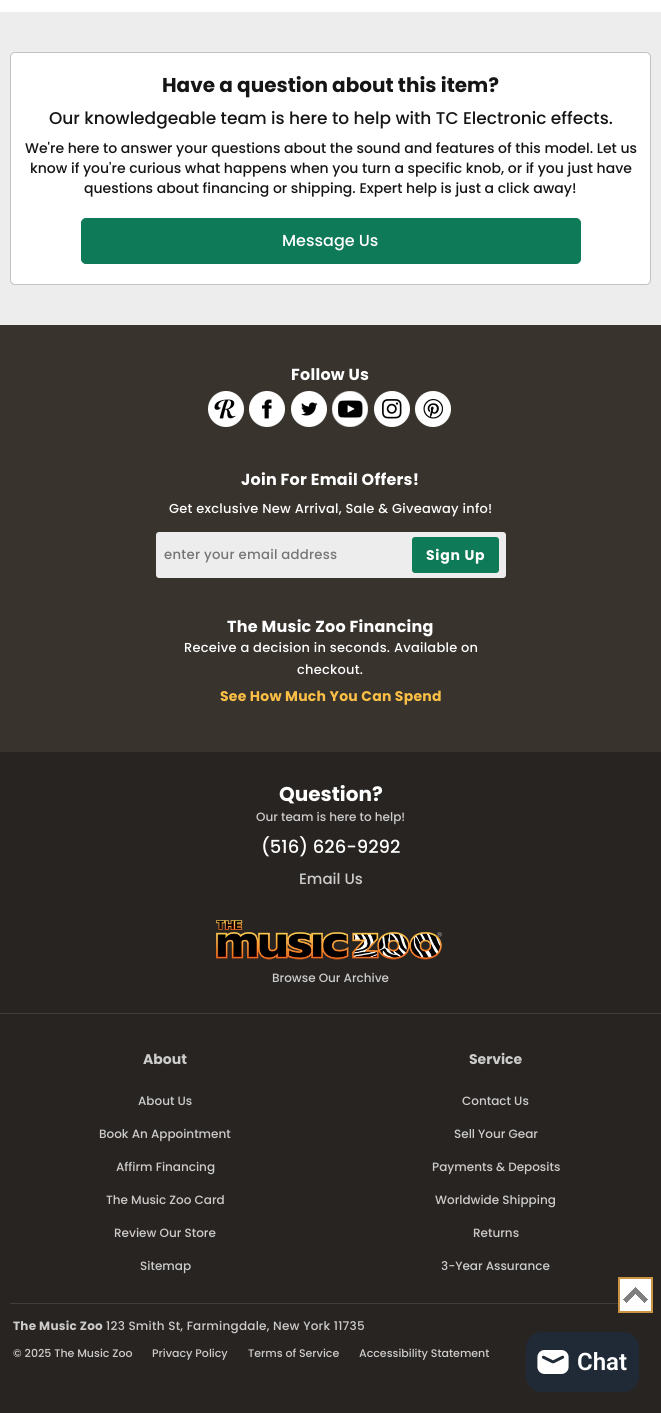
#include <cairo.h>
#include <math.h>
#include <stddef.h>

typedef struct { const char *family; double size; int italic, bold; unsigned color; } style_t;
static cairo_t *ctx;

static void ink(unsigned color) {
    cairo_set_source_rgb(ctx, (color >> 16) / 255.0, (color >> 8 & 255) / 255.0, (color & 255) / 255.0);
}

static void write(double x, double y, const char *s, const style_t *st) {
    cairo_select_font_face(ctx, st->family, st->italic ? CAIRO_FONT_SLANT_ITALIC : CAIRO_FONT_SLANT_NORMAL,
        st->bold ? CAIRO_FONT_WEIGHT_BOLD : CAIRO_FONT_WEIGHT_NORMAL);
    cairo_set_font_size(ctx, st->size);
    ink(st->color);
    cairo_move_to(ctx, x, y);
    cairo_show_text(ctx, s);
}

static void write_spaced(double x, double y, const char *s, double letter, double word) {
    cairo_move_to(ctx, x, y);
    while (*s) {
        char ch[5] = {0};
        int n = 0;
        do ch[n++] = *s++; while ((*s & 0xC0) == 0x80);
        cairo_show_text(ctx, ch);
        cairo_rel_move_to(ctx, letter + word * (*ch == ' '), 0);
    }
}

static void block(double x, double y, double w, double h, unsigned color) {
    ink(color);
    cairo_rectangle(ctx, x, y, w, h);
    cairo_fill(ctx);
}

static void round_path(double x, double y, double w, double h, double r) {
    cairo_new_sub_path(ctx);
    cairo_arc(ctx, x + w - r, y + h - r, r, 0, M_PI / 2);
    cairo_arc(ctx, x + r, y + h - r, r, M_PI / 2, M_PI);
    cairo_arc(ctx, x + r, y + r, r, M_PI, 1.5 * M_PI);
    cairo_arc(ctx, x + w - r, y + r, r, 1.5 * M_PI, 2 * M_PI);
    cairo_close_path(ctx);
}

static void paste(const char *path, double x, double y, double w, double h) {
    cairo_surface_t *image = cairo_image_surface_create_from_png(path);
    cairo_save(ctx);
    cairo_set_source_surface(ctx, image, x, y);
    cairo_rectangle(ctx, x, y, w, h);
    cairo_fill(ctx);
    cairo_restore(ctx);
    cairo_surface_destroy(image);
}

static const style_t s1 = {"Poppins", 20, 0, 1, 0x151515};
static const style_t s2 = {"Poppins Medium", 17, 0, 0, 0x151515};
static const style_t s3 = {"Poppins Medium", 14, 0, 0, 0x151515};
static const style_t s4 = {"Poppins Medium", 16, 0, 0, 0xffffff};
static const style_t s5 = {"Poppins", 20, 0, 1, 0xffffff};
static const style_t s6 = {"Poppins Medium", 12, 0, 0, 0xcccccc};
static const style_t s7 = {"Poppins Medium", 18, 0, 0, 0xffffff};
static const style_t s8 = {"Poppins Medium", 15, 0, 0, 0xcccccc};
static const style_t s9 = {"Poppins", 14, 0, 1, 0xcccccc};
static const style_t s10 = {"Poppins Medium", 11, 0, 0, 0xcccccc};
static const style_t s11 = {"Roboto SemiBold", 24, 0, 0, 0xffffff};

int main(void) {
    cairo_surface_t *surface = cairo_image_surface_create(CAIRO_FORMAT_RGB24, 661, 1413);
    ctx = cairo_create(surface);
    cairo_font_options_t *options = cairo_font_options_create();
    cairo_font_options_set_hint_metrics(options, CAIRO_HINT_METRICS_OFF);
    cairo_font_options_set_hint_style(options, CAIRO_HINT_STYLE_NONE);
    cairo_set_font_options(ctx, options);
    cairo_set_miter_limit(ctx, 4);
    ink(0xffffff);
    cairo_paint(ctx);
    block(0, 12, 661, 313, 0xededed);
    ink(0xffffff);
    round_path(10.5, 52.5, 640, 232, 4.5);
    cairo_fill_preserve(ctx);
    ink(0xc2c2c2);
    cairo_set_line_width(ctx, 1);
    cairo_stroke(ctx);
    write(162, 92, "Have a question about this item?", &s1);
    write(49, 124, "Our knowledgeable team is here to help with TC Electronic effects.", &s2);
    write(25, 153, "We're here to answer your questions about the sound and features of this model. Let us", &s3);
    write(30, 173, "know if you're curious what happens when you turn a specific knob, or if you just have", &s3);
    write(84, 193, "questions about financing or shipping. Expert help is just a click away!", &s3);
    ink(0x0e7a57);
    round_path(81.5, 218.5, 499, 45, 4.5);
    cairo_fill_preserve(ctx);
    cairo_stroke(ctx);
    write(282, 246, "Message Us", &s4);
    block(0, 752, 661, 661, 0x282422);
    block(0, 325, 661, 427, 0x38332d);
    cairo_select_font_face(ctx, "Poppins", CAIRO_FONT_SLANT_NORMAL, CAIRO_FONT_WEIGHT_BOLD);
    ink(0xffffff);
    write_spaced(291, 380, "Follow Us", 0.25, 0);
    paste("pic1.png", 208, 391, 36, 36);
    paste("pic2.png", 249, 391, 36, 36);
    paste("pic3.png", 291, 391, 36, 36);
    paste("pic4.png", 332, 391, 36, 36);
    paste("pic5.png", 374, 391, 36, 36);
    paste("pic6.png", 415, 391, 36, 36);
    write_spaced(241, 485, "Join For Email Offers!", 0.25, 0);
    cairo_select_font_face(ctx, "Poppins Medium", CAIRO_FONT_SLANT_NORMAL, CAIRO_FONT_WEIGHT_NORMAL);
    cairo_set_font_size(ctx, 13);
    write_spaced(169, 513, "Get exclusive New Arrival, Sale & Giveaway info!", 0.25, 0);
    ink(0xededed);
    round_path(156, 532, 350, 46, 3);
    cairo_fill(ctx);
    cairo_set_font_size(ctx, 13.25);
    ink(0x757575);
    write_spaced(164, 559, "enter your email address", 0.25, 0);
    ink(0x0e7a57);
    round_path(413, 538, 85, 34, 2);
    cairo_fill_preserve(ctx);
    cairo_set_line_width(ctx, 2);
    cairo_stroke(ctx);
    cairo_select_font_face(ctx, "Poppins", CAIRO_FONT_SLANT_NORMAL, CAIRO_FONT_WEIGHT_BOLD);
    cairo_set_font_size(ctx, 14);
    ink(0xffffff);
    write_spaced(426, 560, "Sign Up", 0.75, 0);
    cairo_set_font_size(ctx, 16);
    write_spaced(227, 632, "The Music Zoo Financing", 0.25, 0);
    cairo_select_font_face(ctx, "Poppins Medium", CAIRO_FONT_SLANT_NORMAL, CAIRO_FONT_WEIGHT_NORMAL);
    cairo_set_font_size(ctx, 13);
    write_spaced(184, 652, "Receive a decision in seconds. Available on", 0.25, 0);
    write_spaced(297, 674, "checkout.", 0.25, 0);
    cairo_select_font_face(ctx, "Poppins", CAIRO_FONT_SLANT_NORMAL, CAIRO_FONT_WEIGHT_BOLD);
    cairo_set_font_size(ctx, 14);
    ink(0xfcbf45);
    write_spaced(220, 701, "See How Much You Can Spend", 0.25, 0);
    block(0, 1013, 661, 1, 0x3f3f3f);
    write(279, 801, "Question?", &s5);
    write(256, 821, "Our team is here to help!", &s6);
    write(261, 853, "(516) 626-9292", &s7);
    write(299, 884, "Email Us", &s8);
    paste("pic7.png", 216, 920, 226, 40);
    write(272, 982, "Browse Our Archive", &s6);
    write(143, 1064, "About", &s9);
    write(138, 1105, "About Us", &s6);
    write(99, 1138, "Book An Appointment", &s6);
    write(116, 1171, "Affirm Financing", &s6);
    write(106, 1204, "The Music Zoo Card", &s6);
    write(114, 1237, "Review Our Store", &s6);
    write(140, 1270, "Sitemap", &s6);
    write(469, 1064, "Service", &s9);
    write(462, 1105, "Contact Us", &s6);
    write(454, 1138, "Sell Your Gear", &s6);
    write(432, 1171, "Payments & Deposits", &s6);
    write(435, 1204, "Worldwide Shipping", &s6);
    write(473, 1237, "Returns", &s6);
    write(441, 1270, "3-Year Assurance", &s6);
    block(10, 1303, 608, 1, 0x3f3f3f);
    cairo_select_font_face(ctx, "Poppins", CAIRO_FONT_SLANT_NORMAL, CAIRO_FONT_WEIGHT_BOLD);
    ink(0xcccccc);
    write_spaced(13, 1330, "The Music Zoo", 0.25, 0);
    cairo_select_font_face(ctx, "Poppins Medium", CAIRO_FONT_SLANT_NORMAL, CAIRO_FONT_WEIGHT_NORMAL);
    write_spaced(106, 1330, "123 Smith St, Farmingdale, New York 11735", 0.25, 0);
    write(13, 1357, "© 2025 The Music Zoo", &s10);
    write(152, 1357, "Privacy Policy", &s10);
    write(248, 1357, "Terms of Service", &s10);
    write(359, 1357, "Accessibility Statement", &s10);
    block(620, 1279, 31, 32, 0xffffff);
    paste("pic8.png", 623, 1287, 25, 16);
    cairo_rectangle(ctx, 619, 1278, 33, 34);
    ink(0xca9442);
    cairo_stroke(ctx);
    ink(0x202a36);
    round_path(526, 1332, 113, 60, 16);
    cairo_fill(ctx);
    paste("pic9.png", 537, 1350, 32, 24);
    write(577, 1370, "Chat", &s11);
    cairo_surface_write_to_png(surface, "screenshot.png");
    cairo_font_options_destroy(options);
    cairo_destroy(ctx);
    cairo_surface_destroy(surface);
    return 0;
}
